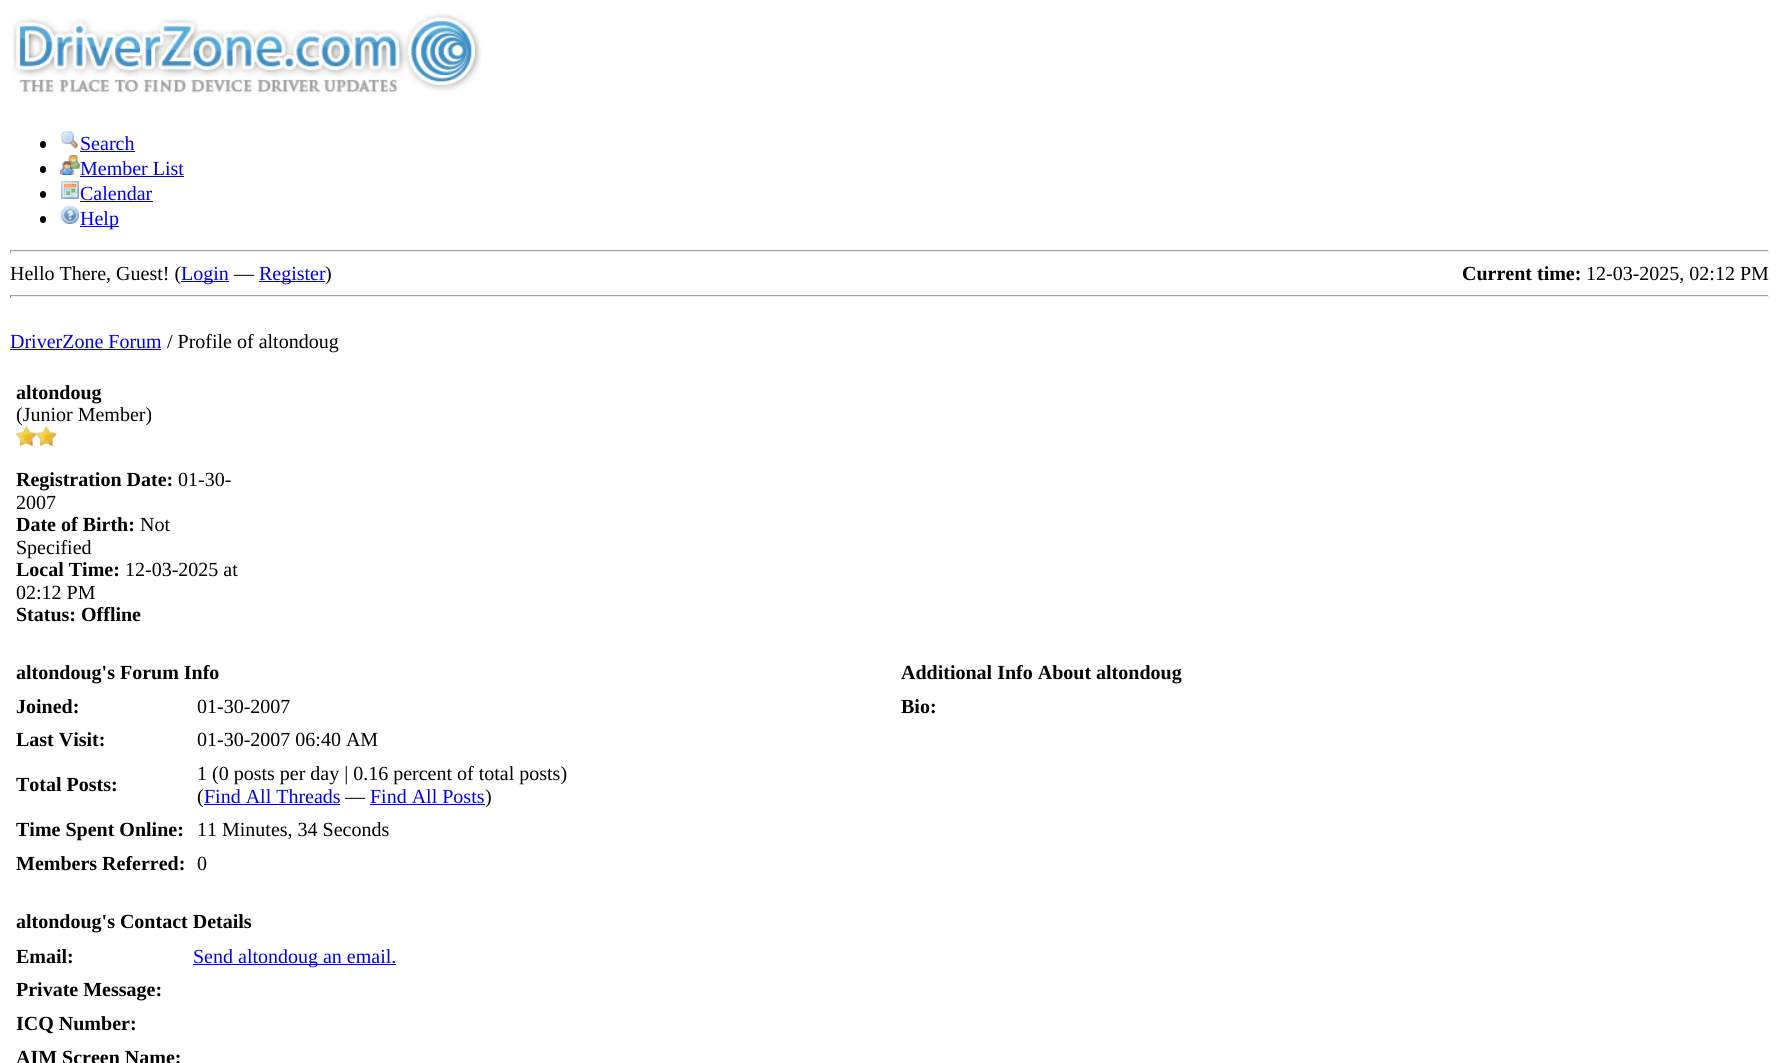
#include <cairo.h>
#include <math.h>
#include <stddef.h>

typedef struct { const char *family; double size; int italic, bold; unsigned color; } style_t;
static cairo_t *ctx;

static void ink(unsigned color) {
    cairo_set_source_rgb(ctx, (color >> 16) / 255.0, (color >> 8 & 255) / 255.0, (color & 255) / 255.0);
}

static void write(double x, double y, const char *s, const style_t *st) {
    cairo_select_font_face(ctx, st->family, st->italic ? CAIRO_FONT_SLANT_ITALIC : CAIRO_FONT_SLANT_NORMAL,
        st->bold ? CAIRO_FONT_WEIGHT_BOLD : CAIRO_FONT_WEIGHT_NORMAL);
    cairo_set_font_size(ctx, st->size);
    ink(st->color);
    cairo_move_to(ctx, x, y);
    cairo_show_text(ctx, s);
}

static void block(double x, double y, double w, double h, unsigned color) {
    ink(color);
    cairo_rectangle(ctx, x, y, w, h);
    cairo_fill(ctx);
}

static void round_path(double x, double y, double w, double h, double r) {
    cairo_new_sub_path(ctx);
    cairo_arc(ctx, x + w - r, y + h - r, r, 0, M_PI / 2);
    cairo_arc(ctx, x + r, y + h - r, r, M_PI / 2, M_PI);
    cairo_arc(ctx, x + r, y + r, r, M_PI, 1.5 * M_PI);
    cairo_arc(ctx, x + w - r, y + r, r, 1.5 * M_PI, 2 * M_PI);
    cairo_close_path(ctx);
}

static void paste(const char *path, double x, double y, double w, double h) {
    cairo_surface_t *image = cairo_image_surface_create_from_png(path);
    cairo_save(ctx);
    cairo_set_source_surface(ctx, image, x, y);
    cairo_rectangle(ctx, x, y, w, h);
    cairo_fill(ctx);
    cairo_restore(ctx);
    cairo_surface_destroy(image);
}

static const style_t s1 = {"Liberation Serif", 20, 0, 0, 0x0000ee};
static const style_t s2 = {"Liberation Serif", 20, 0, 0, 0x000000};
static const style_t s3 = {"Liberation Serif", 20, 0, 1, 0x000000};

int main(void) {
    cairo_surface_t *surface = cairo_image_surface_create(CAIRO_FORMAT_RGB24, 1778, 1063);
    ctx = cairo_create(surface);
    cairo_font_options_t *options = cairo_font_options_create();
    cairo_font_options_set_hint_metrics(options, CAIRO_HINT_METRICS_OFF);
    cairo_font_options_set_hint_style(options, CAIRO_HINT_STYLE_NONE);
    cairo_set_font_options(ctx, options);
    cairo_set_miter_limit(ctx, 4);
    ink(0xffffff);
    cairo_paint(ctx);
    paste("pic1.png", 12, 13, 470, 81);
    ink(0x000000);
    round_path(40, 141, 6, 7, 3);
    cairo_fill(ctx);
    paste("pic2.png", 61, 131, 17, 18);
    write(80, 150, "Search", &s1);
    block(80, 151, 55, 1, 0x0000ee);
    ink(0x000000);
    round_path(40, 166, 6, 7, 3);
    cairo_fill(ctx);
    paste("pic3.png", 60, 155, 20, 20);
    write(80, 175, "Member List", &s1);
    block(80, 176, 104, 1, 0x0000ee);
    ink(0x000000);
    round_path(40, 191, 6, 7, 3);
    cairo_fill(ctx);
    paste("pic4.png", 61, 181, 18, 18);
    write(80, 200, "Calendar", &s1);
    block(80, 201, 73, 1, 0x0000ee);
    ink(0x000000);
    round_path(40, 216, 6, 7, 3);
    cairo_fill(ctx);
    paste("pic5.png", 61, 206, 18, 18);
    block(80, 226, 39, 1, 0x0000ee);
    write(80, 225, "Help", &s1);
    block(10, 250, 1759, 1, 0x9f9f9f);
    block(1768, 250, 1, 3, 0xeeeeee);
    block(10, 251, 1759, 1, 0xeeeeee);
    block(10, 250, 1, 3, 0x9f9f9f);
    write(10, 280, "Hello There, Guest! (", &s2);
    block(181, 281, 48, 1, 0x0000ee);
    write(181, 280, "Login", &s1);
    write(234, 280, "—", &s2);
    block(259, 281, 66, 1, 0x0000ee);
    write(259, 280, "Register", &s1);
    write(325, 280, ")", &s2);
    write(1462, 280, "Current time:", &s3);
    write(1586, 280, "12-03-2025, 02:12 PM", &s2);
    block(10, 295, 1759, 1, 0x9f9f9f);
    block(1768, 295, 1, 3, 0xeeeeee);
    block(10, 296, 1759, 1, 0xeeeeee);
    block(10, 295, 1, 3, 0x9f9f9f);
    write(10, 348, "DriverZone Forum", &s1);
    block(10, 349, 151, 1, 0x0000ee);
    write(167, 348, "/ Profile of altondoug", &s2);
    write(16, 399, "altondoug", &s3);
    write(16, 421, "(Junior Member)", &s2);
    paste("pic6.png", 16, 426, 21, 21);
    paste("pic7.png", 36, 426, 21, 21);
    write(16, 486, "Registration Date:", &s3);
    write(178, 486, "01-30-", &s2);
    write(16, 509, "2007", &s2);
    write(16, 531, "Date of Birth:", &s3);
    write(140, 531, "Not", &s2);
    write(16, 554, "Specified", &s2);
    write(16, 576, "Local Time:", &s3);
    write(125, 576, "12-03-2025 at", &s2);
    write(16, 599, "02:12 PM", &s2);
    write(16, 621, "Status: Offline", &s3);
    write(16, 679, "altondoug's Forum Info", &s3);
    write(16, 713, "Joined:", &s3);
    write(197, 713, "01-30-2007", &s2);
    write(16, 746, "Last Visit:", &s3);
    write(197, 746, "01-30-2007 06:40 AM", &s2);
    write(16, 791, "Total Posts:", &s3);
    write(197, 780, "1 (0 posts per day | 0.16 percent of total posts)", &s2);
    write(197, 803, "(", &s2);
    block(204, 804, 136, 1, 0x0000ee);
    write(204, 803, "Find All Threads", &s1);
    write(345, 803, "—", &s2);
    write(370, 803, "Find All Posts", &s1);
    write(485, 803, ")", &s2);
    block(370, 804, 115, 1, 0x0000ee);
    write(16, 836, "Time Spent Online:", &s3);
    write(197, 836, "11 Minutes, 34 Seconds", &s2);
    write(16, 870, "Members Referred:", &s3);
    write(197, 870, "0", &s2);
    write(16, 928, "altondoug's Contact Details", &s3);
    write(16, 963, "Email:", &s3);
    block(193, 964, 203, 1, 0x0000ee);
    write(193, 963, "Send altondoug an email.", &s1);
    write(16, 996, "Private Message:", &s3);
    write(16, 1030, "ICQ Number:", &s3);
    write(16, 1064, "AIM Screen Name:", &s3);
    write(901, 679, "Additional Info About altondoug", &s3);
    write(901, 713, "Bio:", &s3);
    cairo_surface_write_to_png(surface, "screenshot.png");
    cairo_font_options_destroy(options);
    cairo_destroy(ctx);
    cairo_surface_destroy(surface);
    return 0;
}
